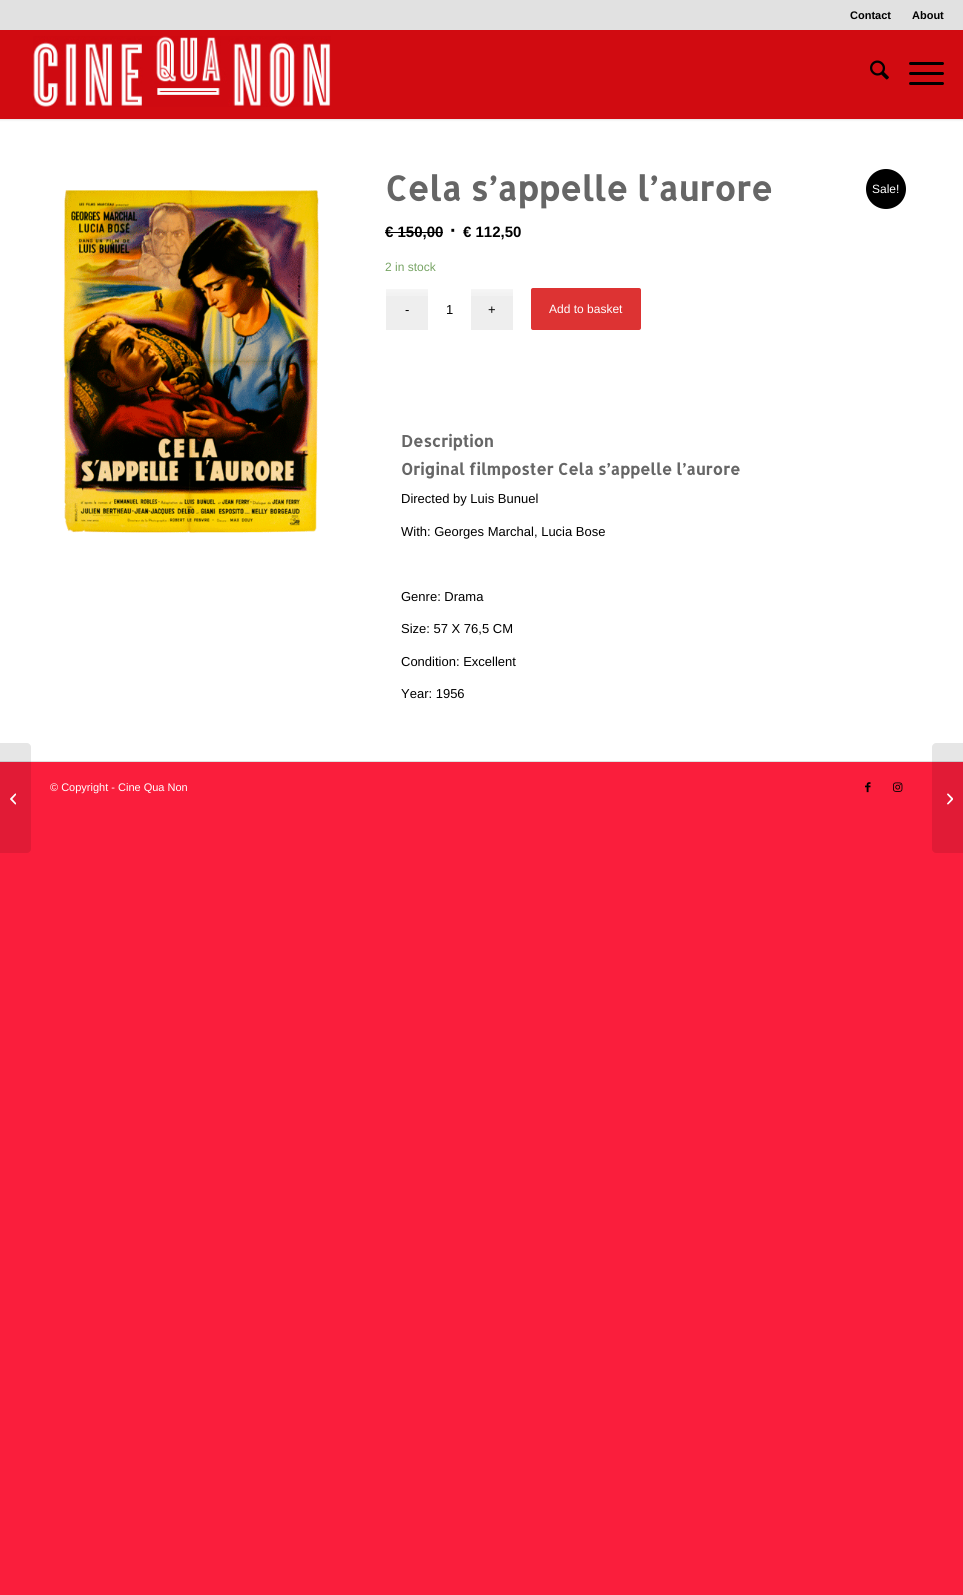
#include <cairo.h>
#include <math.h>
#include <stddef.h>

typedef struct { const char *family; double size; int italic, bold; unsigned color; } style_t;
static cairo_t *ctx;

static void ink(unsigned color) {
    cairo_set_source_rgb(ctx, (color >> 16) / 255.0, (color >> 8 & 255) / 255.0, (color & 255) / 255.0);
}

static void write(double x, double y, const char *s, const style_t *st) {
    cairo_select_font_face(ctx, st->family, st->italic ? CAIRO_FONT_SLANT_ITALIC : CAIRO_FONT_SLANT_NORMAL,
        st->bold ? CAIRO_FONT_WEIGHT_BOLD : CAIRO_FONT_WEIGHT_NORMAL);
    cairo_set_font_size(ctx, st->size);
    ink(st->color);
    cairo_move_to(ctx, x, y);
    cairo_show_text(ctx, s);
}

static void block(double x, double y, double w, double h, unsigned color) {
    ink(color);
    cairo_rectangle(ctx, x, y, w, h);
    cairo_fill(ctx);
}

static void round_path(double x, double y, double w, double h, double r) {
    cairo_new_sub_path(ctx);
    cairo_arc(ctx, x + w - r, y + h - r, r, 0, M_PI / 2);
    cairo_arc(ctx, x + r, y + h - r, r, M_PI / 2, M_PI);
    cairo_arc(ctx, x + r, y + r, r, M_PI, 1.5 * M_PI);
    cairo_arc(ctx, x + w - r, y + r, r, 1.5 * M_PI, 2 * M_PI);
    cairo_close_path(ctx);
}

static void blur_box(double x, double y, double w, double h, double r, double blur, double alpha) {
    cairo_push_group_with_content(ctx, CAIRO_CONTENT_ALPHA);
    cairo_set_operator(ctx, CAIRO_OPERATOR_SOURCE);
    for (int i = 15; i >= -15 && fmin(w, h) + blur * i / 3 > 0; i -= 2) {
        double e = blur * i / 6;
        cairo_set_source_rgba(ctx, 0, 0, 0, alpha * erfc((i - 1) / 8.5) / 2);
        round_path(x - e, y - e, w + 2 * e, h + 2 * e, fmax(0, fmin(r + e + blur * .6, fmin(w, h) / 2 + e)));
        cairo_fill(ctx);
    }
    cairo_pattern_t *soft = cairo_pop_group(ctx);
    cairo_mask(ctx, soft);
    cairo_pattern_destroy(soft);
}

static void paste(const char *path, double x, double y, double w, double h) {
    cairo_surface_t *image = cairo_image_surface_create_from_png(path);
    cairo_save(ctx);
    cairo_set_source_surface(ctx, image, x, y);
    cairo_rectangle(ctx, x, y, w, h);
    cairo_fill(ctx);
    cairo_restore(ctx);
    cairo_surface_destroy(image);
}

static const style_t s1 = {"Liberation Sans", 11, 0, 1, 0x000000};
static const style_t s2 = {"Allerta", 34, 0, 1, 0x666666};
static const style_t s3 = {"Liberation Sans", 15, 0, 1, 0x000000};
static const style_t s4 = {"Liberation Sans", 20, 0, 1, 0x000000};
static const style_t s5 = {"Liberation Sans", 12, 0, 0, 0x77a464};
static const style_t s6 = {"Liberation Sans", 13, 0, 0, 0x000000};
static const style_t s7 = {"Liberation Sans", 12, 0, 0, 0xffffff};
static const style_t s8 = {"Allerta", 16, 0, 1, 0x666666};
static const style_t s9 = {"Liberation Sans", 11, 0, 0, 0xffffff};

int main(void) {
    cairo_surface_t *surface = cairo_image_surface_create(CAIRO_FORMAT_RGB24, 963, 1595);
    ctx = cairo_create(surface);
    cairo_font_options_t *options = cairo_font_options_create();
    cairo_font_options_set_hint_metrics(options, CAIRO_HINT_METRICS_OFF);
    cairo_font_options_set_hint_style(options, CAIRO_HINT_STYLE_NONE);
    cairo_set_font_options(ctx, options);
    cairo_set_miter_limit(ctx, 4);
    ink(0xfa1e3c);
    cairo_paint(ctx);
    block(0, 119, 963, 642, 0xffffff);
    ink(0x000000);
    blur_box(-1, -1, 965, 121, 0, 1, 0.1);
    block(0, 0, 963, 30, 0xe1e1e1);
    write(850, 19, "Contact", &s1);
    write(912, 19, "About", &s1);
    block(0, 30, 963, 89, 0xd10b11);
    paste("pic1.png", 33, 36, 298, 71);
    paste("pic2.png", 870, 60, 19, 20);
    ink(0x000000);
    round_path(909, 72, 35, 3, 1.5);
    cairo_fill(ctx);
    round_path(909, 62, 35, 3, 1.5);
    cairo_fill(ctx);
    round_path(909, 82, 35, 3, 1.5);
    cairo_fill(ctx);
    block(0, 761, 963, 1, 0xe1e1e1);
    cairo_set_source_rgba(ctx, 0, 0, 0, 0.1);
    cairo_new_path(ctx);
    cairo_move_to(ctx, 0, 743);
    cairo_line_to(ctx, 27, 743);
    cairo_curve_to(ctx, 29, 743, 31, 745, 31, 747);
    cairo_line_to(ctx, 31, 849);
    cairo_curve_to(ctx, 31, 851, 29, 853, 27, 853);
    cairo_line_to(ctx, 0, 853);
    cairo_close_path(ctx);
    cairo_fill(ctx);
    paste("pic3.png", 10, 793, 6, 12);
    write(385, 201, "Cela s’appelle l’aurore", &s2);
    write(385, 237, "€ 150,00", &s3);
    block(385, 232, 58, 1, 0x000000);
    write(450, 237, "∙", &s4);
    write(463, 237, "€ 112,50", &s3);
    write(385, 271, "2 in stock", &s5);
    block(386, 289, 42, 41, 0xeeeeee);
    paste("pic4.png", 386, 289, 42, 7);
    block(471, 289, 42, 41, 0xeeeeee);
    paste("pic4.png", 471, 289, 42, 7);
    write(405, 314, "-", &s6);
    write(446, 314, "1", &s6);
    write(488, 314, "+", &s6);
    ink(0xdd3333);
    round_path(531, 288, 110, 42, 2);
    cairo_fill(ctx);
    write(549, 313, "Add to basket", &s7);
    write(401, 447, "Description", &s8);
    write(401, 475, "Original filmposter Cela s’appelle l’aurore", &s8);
    write(401, 503, "Directed by Luis Bunuel", &s6);
    write(401, 536, "With: Georges Marchal, Lucia Bose", &s6);
    write(401, 601, "Genre: Drama", &s6);
    write(401, 633, "Size: 57 X 76,5 CM", &s6);
    write(401, 666, "Condition: Excellent", &s6);
    write(401, 698, "Year: 1956", &s6);
    cairo_new_path(ctx);
    cairo_arc(ctx, 886, 189, 20, 0, 2 * M_PI);
    cairo_fill(ctx);
    write(872, 193, "Sale!", &s7);
    paste("pic5.png", 63, 190, 257, 343);
    write(50, 791, "© Copyright - Cine Qua Non", &s9);
    paste("pic6.png", 865, 782, 6, 11);
    paste("pic7.png", 893, 782, 10, 10);
    cairo_set_source_rgba(ctx, 0, 0, 0, 0.1);
    cairo_new_path(ctx);
    cairo_move_to(ctx, 936, 743);
    cairo_line_to(ctx, 963, 743);
    cairo_line_to(ctx, 963, 853);
    cairo_line_to(ctx, 936, 853);
    cairo_curve_to(ctx, 934, 853, 932, 851, 932, 849);
    cairo_line_to(ctx, 932, 747);
    cairo_curve_to(ctx, 932, 745, 934, 743, 936, 743);
    cairo_close_path(ctx);
    cairo_fill(ctx);
    paste("pic8.png", 947, 793, 6, 12);
    cairo_surface_write_to_png(surface, "screenshot.png");
    cairo_font_options_destroy(options);
    cairo_destroy(ctx);
    cairo_surface_destroy(surface);
    return 0;
}
